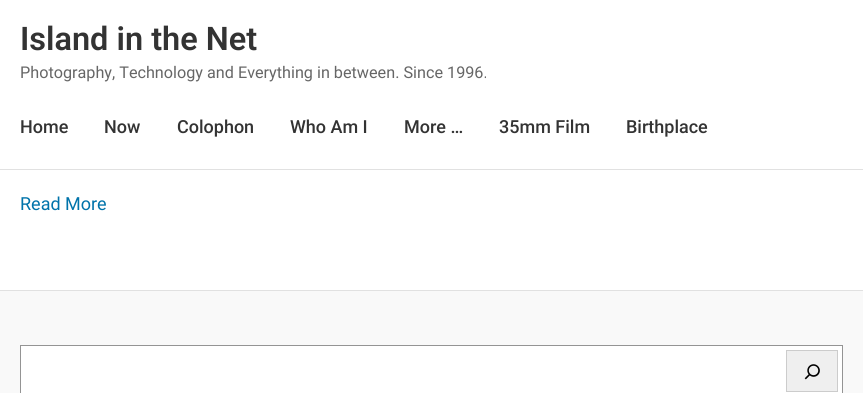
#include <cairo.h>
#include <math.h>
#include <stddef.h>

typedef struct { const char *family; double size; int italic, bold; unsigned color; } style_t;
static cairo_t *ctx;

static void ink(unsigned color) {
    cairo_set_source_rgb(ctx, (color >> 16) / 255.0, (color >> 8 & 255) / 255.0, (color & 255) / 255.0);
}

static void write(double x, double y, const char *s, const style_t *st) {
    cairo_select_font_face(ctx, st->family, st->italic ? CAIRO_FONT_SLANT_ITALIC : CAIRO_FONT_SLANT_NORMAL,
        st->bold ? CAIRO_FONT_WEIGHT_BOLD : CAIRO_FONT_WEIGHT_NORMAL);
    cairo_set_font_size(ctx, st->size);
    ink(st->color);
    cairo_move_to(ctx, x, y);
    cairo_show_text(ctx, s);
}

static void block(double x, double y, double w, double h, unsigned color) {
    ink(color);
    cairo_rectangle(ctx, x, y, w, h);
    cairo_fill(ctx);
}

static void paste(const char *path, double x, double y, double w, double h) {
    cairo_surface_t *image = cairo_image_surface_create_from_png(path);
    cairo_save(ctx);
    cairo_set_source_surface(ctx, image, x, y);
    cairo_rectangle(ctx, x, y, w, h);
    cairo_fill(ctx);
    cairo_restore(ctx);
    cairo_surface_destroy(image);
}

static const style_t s1 = {"Roboto SemiBold", 32.5, 0, 0, 0x333333};
static const style_t s2 = {"Roboto", 16.2, 0, 0, 0x666666};
static const style_t s3 = {"Roboto Medium", 18, 0, 0, 0x333333};
static const style_t s4 = {"Roboto", 18, 0, 0, 0x0073aa};

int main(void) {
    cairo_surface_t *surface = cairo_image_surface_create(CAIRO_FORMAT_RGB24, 863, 393);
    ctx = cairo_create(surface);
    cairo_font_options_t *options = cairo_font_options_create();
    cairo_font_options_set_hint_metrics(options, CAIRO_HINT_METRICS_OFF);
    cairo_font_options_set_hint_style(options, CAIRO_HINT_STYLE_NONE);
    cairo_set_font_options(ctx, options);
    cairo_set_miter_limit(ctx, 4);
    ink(0xffffff);
    cairo_paint(ctx);
    block(0, 169, 863, 1, 0xe1e1e1);
    write(20, 50, "Island in the Net", &s1);
    write(20, 78, "Photography, Technology and Everything in between. Since 1996.", &s2);
    write(20, 133, "Home", &s3);
    write(104, 133, "Now", &s3);
    write(177, 133, "Colophon", &s3);
    write(290, 133, "Who Am I", &s3);
    write(404, 133, "More …", &s3);
    write(499, 133, "35mm Film", &s3);
    write(626, 133, "Birthplace", &s3);
    write(20, 210, "Read More", &s4);
    block(0, 291, 863, 102, 0xf9f9f9);
    block(0, 290, 863, 1, 0xe1e1e1);
    ink(0xffffff);
    cairo_rectangle(ctx, 20.5, 345.5, 822, 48);
    cairo_fill_preserve(ctx);
    ink(0x949494);
    cairo_set_line_width(ctx, 1);
    cairo_stroke(ctx);
    ink(0xefefef);
    cairo_rectangle(ctx, 786.5, 350.5, 51, 41);
    cairo_fill_preserve(ctx);
    ink(0xcccccc);
    cairo_stroke(ctx);
    paste("pic1.png", 804, 364, 16, 16);
    cairo_surface_write_to_png(surface, "screenshot.png");
    cairo_font_options_destroy(options);
    cairo_destroy(ctx);
    cairo_surface_destroy(surface);
    return 0;
}
